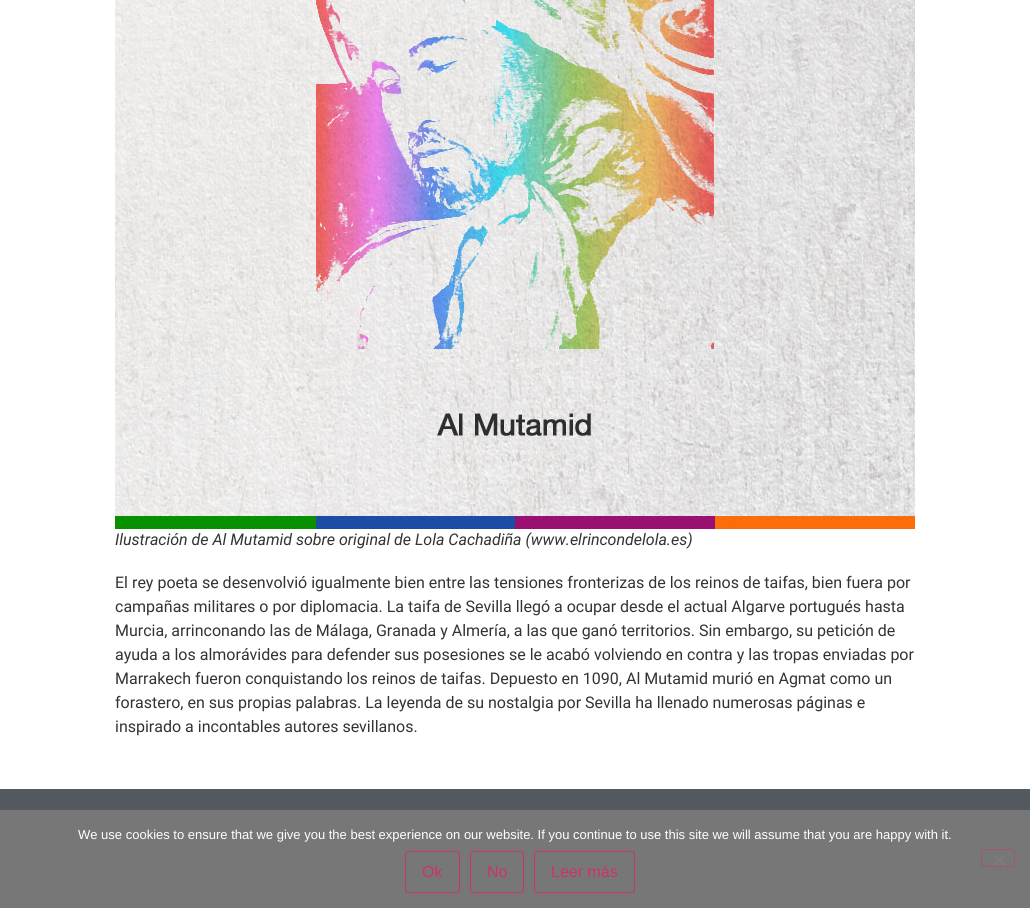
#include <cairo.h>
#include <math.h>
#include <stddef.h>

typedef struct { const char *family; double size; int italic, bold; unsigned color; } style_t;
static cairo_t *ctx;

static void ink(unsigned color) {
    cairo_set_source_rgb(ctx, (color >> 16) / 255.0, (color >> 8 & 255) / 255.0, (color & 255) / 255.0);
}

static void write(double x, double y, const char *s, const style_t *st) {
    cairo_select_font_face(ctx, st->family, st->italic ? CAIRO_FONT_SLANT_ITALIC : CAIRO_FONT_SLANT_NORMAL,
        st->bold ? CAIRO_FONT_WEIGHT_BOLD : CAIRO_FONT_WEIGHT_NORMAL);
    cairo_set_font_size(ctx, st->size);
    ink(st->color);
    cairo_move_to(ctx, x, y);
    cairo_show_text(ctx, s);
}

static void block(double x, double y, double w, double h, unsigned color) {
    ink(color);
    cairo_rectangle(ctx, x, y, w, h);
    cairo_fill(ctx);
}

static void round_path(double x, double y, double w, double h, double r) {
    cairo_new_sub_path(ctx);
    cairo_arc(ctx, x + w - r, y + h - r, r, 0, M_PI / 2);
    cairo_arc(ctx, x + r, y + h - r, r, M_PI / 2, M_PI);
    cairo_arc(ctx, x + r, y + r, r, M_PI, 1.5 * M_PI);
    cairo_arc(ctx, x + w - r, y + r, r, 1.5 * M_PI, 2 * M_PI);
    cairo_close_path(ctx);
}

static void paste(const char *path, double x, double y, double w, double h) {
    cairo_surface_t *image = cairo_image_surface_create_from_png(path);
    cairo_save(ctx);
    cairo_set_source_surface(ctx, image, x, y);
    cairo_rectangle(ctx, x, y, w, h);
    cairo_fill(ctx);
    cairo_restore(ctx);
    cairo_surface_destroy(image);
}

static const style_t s1 = {"Roboto", 16, 1, 0, 0x333333};
static const style_t s2 = {"Roboto", 16, 0, 0, 0x333333};
static const style_t s3 = {"Liberation Sans", 13, 0, 0, 0xffffff};
static const style_t s4 = {"Liberation Sans", 16, 0, 0, 0xcc3366};

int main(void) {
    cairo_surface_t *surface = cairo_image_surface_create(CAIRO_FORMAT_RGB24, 1030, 908);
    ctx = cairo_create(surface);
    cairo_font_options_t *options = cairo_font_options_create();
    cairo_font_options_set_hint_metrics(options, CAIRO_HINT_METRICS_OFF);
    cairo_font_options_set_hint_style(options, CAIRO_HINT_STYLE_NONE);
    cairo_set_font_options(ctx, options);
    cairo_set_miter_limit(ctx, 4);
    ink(0xffffff);
    cairo_paint(ctx);
    paste("pic1.png", 115, 0, 800, 529);
    write(115, 545, "Ilustración de Al Mutamid sobre original de Lola Cachadiña (www.elrincondelola.es)", &s1);
    write(115, 588, "El rey poeta se desenvolvió igualmente bien entre las tensiones fronterizas de los reinos de taifas, bien fuera por", &s2);
    write(115, 612, "campañas militares o por diplomacia. La taifa de Sevilla llegó a ocupar desde el actual Algarve portugués hasta", &s2);
    write(115, 636, "Murcia, arrinconando las de Málaga, Granada y Almería, a las que ganó territorios. Sin embargo, su petición de", &s2);
    write(115, 660, "ayuda a los almorávides para defender sus posesiones se le acabó volviendo en contra y las tropas enviadas por", &s2);
    write(115, 684, "Marrakech fueron conquistando los reinos de taifas. Depuesto en 1090, Al Mutamid murió en Agmat como un", &s2);
    write(115, 708, "forastero, en sus propias palabras. La leyenda de su nostalgia por Sevilla ha llenado numerosas páginas e", &s2);
    write(115, 732, "inspirado a incontables autores sevillanos.", &s2);
    block(0, 789, 1030, 21, 0x54595f);
    block(0, 810, 1030, 98, 0x777777);
    write(78, 839, "We use cookies to ensure that we give you the best experience on our website. If you continue to use this site we will assume that you are happy with it.", &s3);
    round_path(981.5, 849.5, 33, 17, 2.5);
    ink(0xa2556f);
    cairo_set_line_width(ctx, 1);
    cairo_stroke(ctx);
    ink(0x7c7c7c);
    cairo_new_path(ctx);
    cairo_move_to(ctx, 1003.5, 854.5);
    cairo_line_to(ctx, 1005, 856);
    cairo_line_to(ctx, 994.5, 866.5);
    cairo_line_to(ctx, 993, 865);
    cairo_close_path(ctx);
    cairo_fill(ctx);
    cairo_new_path(ctx);
    cairo_move_to(ctx, 993, 856);
    cairo_line_to(ctx, 994.5, 854.5);
    cairo_line_to(ctx, 1005, 865);
    cairo_line_to(ctx, 1003.5, 866.5);
    cairo_close_path(ctx);
    cairo_fill(ctx);
    round_path(405.5, 851.5, 54, 41, 2.5);
    ink(0xcc3366);
    cairo_stroke(ctx);
    write(422, 877, "Ok", &s4);
    round_path(470.5, 851.5, 53, 41, 2.5);
    cairo_stroke(ctx);
    write(487, 877, "No", &s4);
    round_path(534.5, 851.5, 100, 41, 2.5);
    cairo_stroke(ctx);
    write(551, 877, "Leer más", &s4);
    cairo_surface_write_to_png(surface, "screenshot.png");
    cairo_font_options_destroy(options);
    cairo_destroy(ctx);
    cairo_surface_destroy(surface);
    return 0;
}
